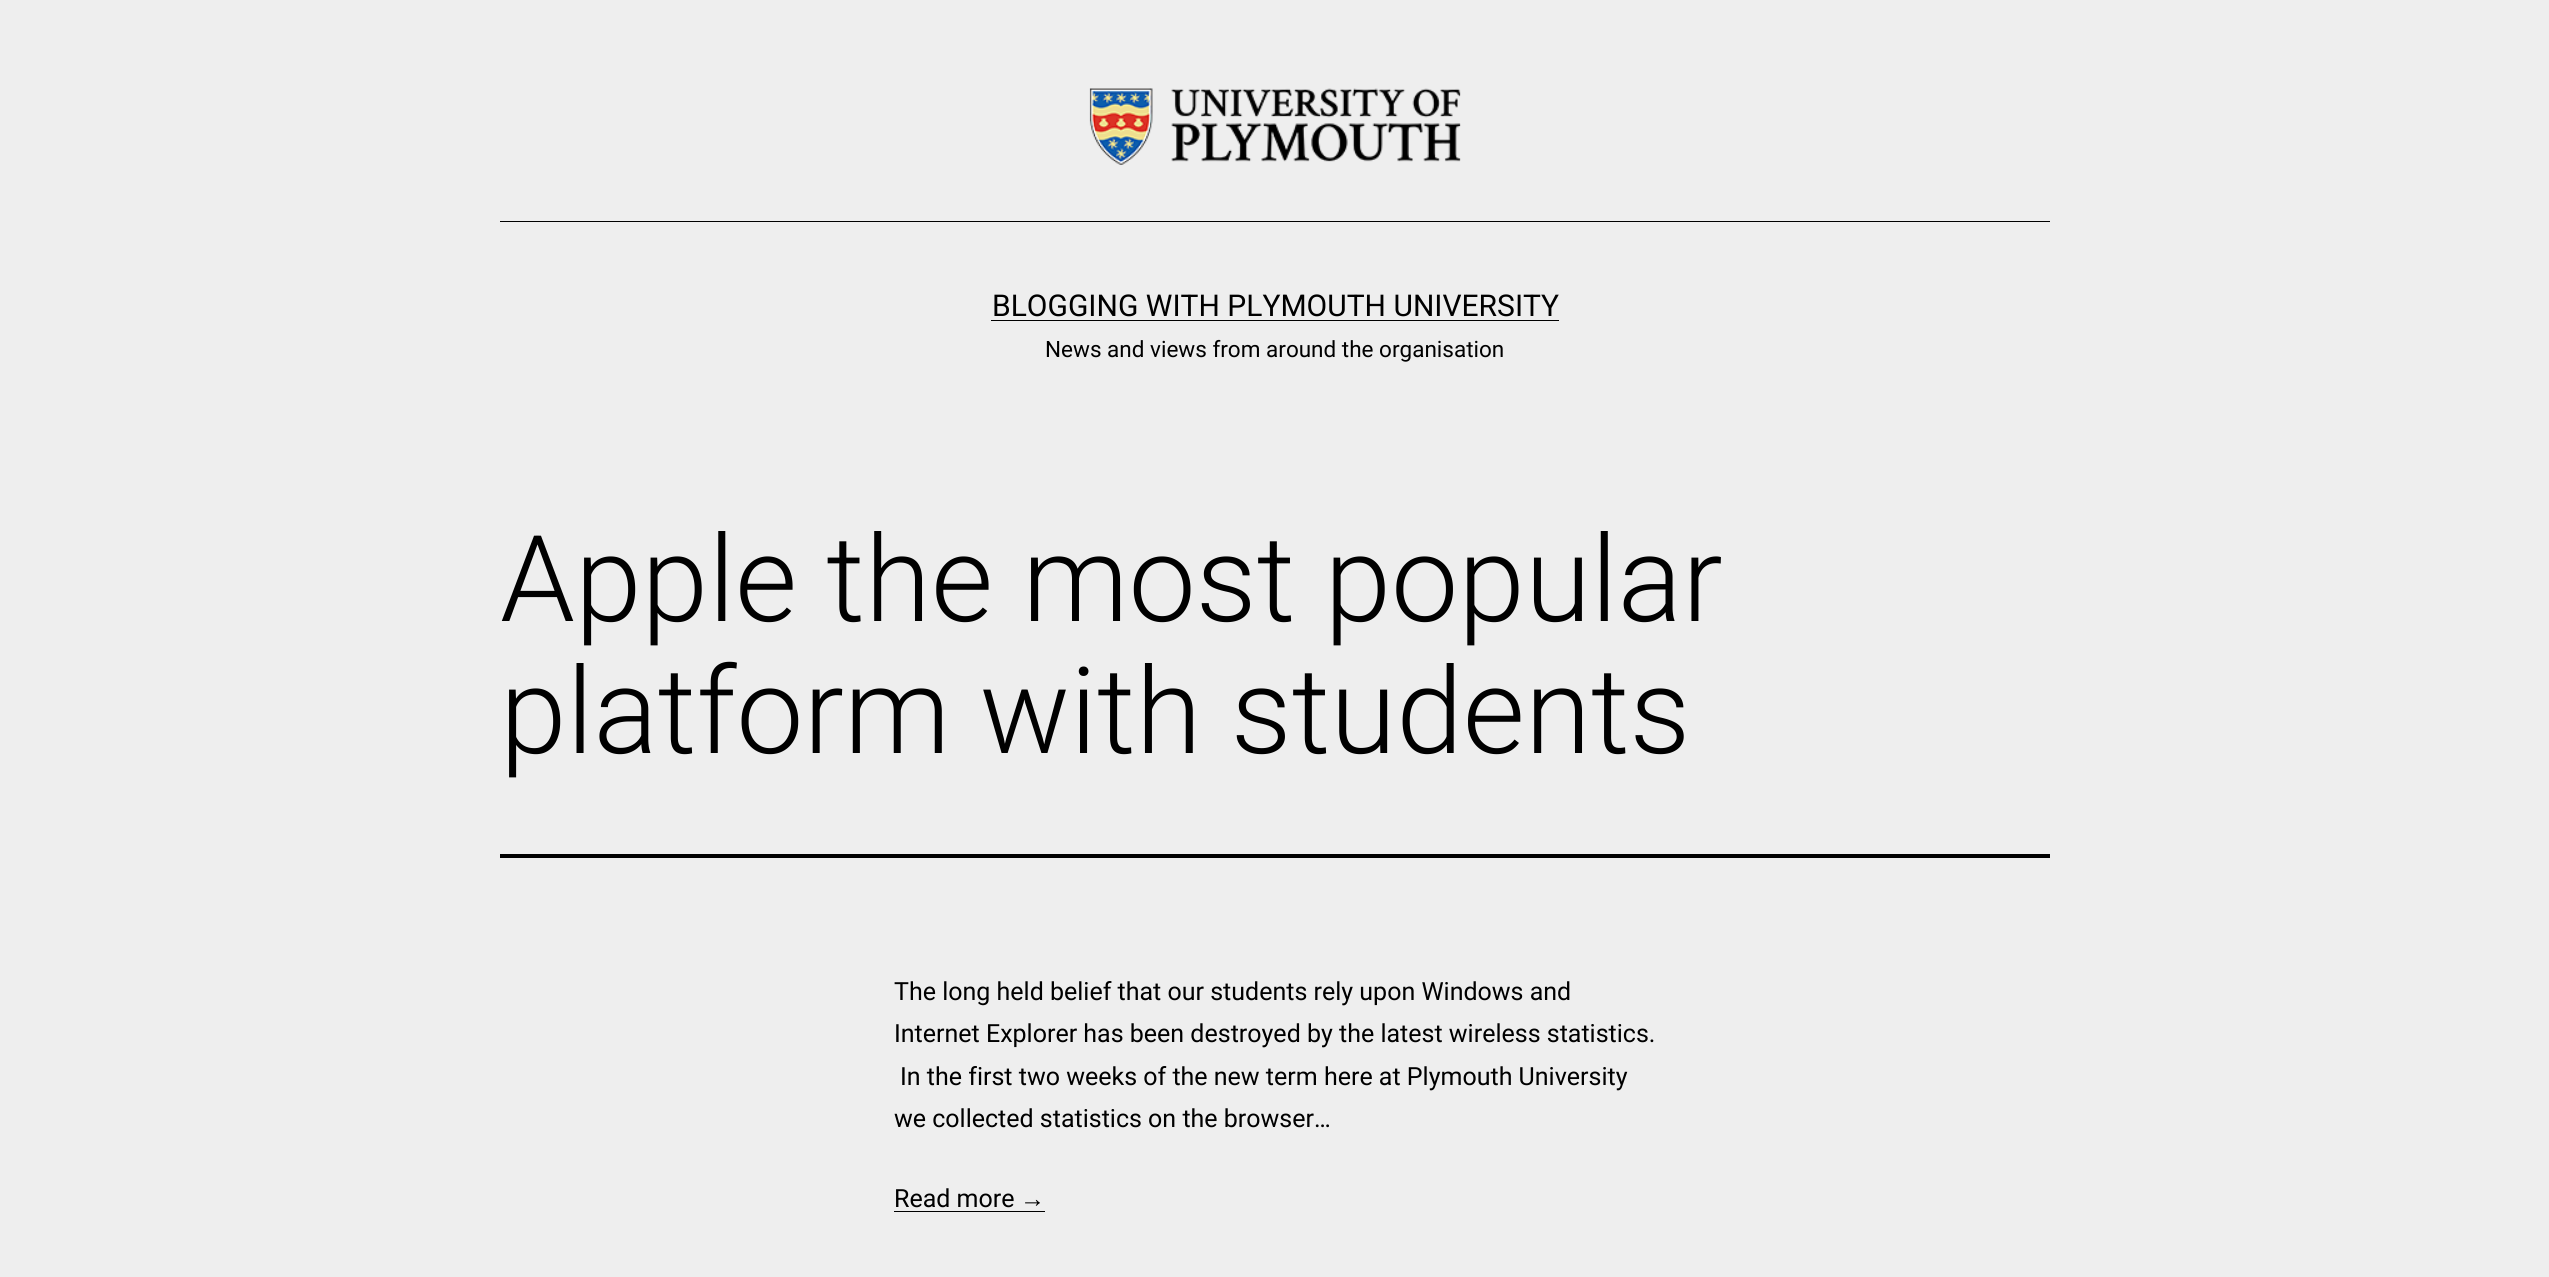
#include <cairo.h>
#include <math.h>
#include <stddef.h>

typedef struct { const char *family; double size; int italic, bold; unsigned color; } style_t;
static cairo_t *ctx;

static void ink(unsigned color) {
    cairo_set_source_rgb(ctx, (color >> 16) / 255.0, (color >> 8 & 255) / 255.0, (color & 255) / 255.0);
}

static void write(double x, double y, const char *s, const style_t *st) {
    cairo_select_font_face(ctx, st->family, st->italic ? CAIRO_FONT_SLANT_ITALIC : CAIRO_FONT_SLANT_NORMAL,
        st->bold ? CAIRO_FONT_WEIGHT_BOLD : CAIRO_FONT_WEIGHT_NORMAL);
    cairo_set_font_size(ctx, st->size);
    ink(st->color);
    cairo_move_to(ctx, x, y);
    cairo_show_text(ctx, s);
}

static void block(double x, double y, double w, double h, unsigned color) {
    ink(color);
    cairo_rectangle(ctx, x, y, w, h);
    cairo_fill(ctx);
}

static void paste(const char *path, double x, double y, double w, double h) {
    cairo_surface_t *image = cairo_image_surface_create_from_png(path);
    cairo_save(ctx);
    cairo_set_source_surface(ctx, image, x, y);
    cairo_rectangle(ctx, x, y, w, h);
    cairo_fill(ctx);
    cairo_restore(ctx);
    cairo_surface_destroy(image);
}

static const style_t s1 = {"Roboto", 30, 0, 0, 0x000000};
static const style_t s2 = {"Roboto", 22.5, 0, 0, 0x000000};
static const style_t s3 = {"Roboto Light", 120, 0, 0, 0x000000};
static const style_t s4 = {"Roboto", 25, 0, 0, 0x000000};
static const style_t s5 = {"Liberation Sans", 25, 0, 0, 0x000000};

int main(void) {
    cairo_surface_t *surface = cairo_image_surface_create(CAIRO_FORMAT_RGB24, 2549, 1277);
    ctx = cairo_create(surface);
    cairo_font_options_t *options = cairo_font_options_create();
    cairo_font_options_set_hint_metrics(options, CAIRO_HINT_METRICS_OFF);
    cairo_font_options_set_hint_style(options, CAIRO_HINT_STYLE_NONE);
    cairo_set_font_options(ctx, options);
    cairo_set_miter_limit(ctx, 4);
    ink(0xeeeeee);
    cairo_paint(ctx);
    block(500, 221, 1550, 1, 0x000000);
    paste("pic1.png", 1089, 88, 372, 77);
    write(992, 316, "BLOGGING WITH PLYMOUTH UNIVERSITY", &s1);
    block(991, 320, 568, 1, 0x000000);
    write(1045, 357, "News and views from around the organisation", &s2);
    block(500, 854, 1550, 4, 0x000000);
    write(500, 621, "Apple the most popular", &s3);
    write(500, 753, "platform with students", &s3);
    write(894, 1000, "The long held belief that our students rely upon Windows and", &s4);
    write(894, 1042, "Internet Explorer has been destroyed by the latest wireless statistics.", &s4);
    write(900, 1085, "In the first two weeks of the new term here at Plymouth University", &s4);
    write(894, 1127, "we collected statistics on the browser…", &s4);
    write(894, 1207, "Read more", &s4);
    write(1020, 1207, "→", &s5);
    block(894, 1211, 151, 1, 0x000000);
    cairo_surface_write_to_png(surface, "screenshot.png");
    cairo_font_options_destroy(options);
    cairo_destroy(ctx);
    cairo_surface_destroy(surface);
    return 0;
}
